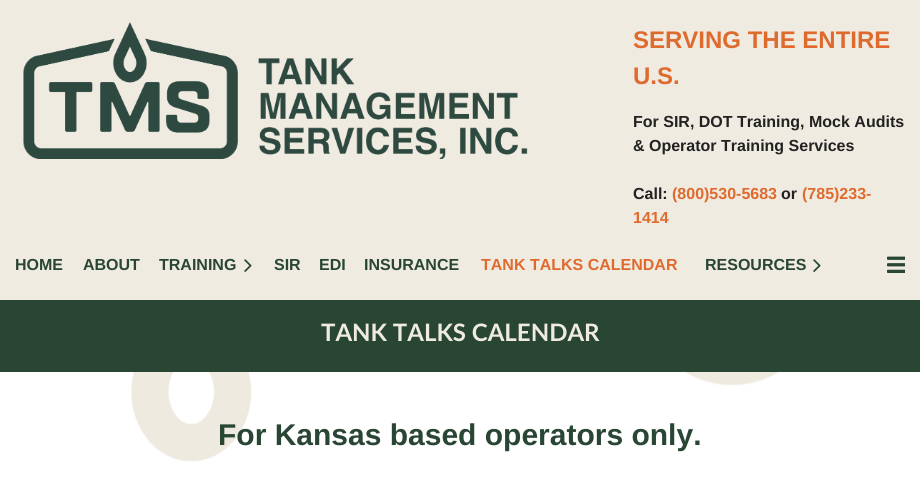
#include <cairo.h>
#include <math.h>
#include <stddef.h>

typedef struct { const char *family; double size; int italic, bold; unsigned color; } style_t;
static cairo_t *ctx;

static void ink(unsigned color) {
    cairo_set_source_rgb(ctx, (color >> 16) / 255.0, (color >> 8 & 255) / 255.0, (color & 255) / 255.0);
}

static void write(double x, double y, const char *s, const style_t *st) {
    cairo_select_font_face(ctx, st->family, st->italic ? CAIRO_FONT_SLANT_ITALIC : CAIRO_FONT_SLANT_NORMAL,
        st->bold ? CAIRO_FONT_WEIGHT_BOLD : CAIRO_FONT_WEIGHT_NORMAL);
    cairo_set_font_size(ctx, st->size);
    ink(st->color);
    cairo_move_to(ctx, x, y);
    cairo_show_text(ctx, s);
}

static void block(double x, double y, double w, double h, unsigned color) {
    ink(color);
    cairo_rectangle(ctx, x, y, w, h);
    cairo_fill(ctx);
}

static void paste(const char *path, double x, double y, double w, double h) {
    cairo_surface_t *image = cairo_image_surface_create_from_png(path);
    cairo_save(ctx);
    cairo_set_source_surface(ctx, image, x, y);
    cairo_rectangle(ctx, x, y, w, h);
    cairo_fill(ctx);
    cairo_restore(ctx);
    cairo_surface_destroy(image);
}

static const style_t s1 = {"Liberation Sans", 24, 0, 1, 0xdf6a2e};
static const style_t s2 = {"Liberation Sans", 16, 0, 1, 0x222222};
static const style_t s3 = {"Liberation Sans", 16, 0, 1, 0xdf6a2e};
static const style_t s4 = {"Liberation Sans", 16, 0, 1, 0x294634};
static const style_t s5 = {"Lato", 24, 0, 1, 0xf0ebe1};
static const style_t s6 = {"Liberation Sans", 30, 0, 1, 0x294634};

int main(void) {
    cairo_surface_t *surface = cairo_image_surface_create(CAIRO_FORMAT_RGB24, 920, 489);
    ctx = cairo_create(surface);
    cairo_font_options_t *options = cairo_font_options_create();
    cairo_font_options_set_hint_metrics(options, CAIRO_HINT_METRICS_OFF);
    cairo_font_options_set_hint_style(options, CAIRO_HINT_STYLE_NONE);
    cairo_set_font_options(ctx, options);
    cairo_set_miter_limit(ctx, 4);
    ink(0xffffff);
    cairo_paint(ctx);
    paste("pic1.png", 131, 372, 649, 90);
    block(0, 0, 920, 300, 0xf0ebe1);
    paste("pic2.png", 23, 22, 505, 137);
    write(633, 48, "SERVING THE ENTIRE", &s1);
    write(633, 84, "U.S.", &s1);
    write(633, 127, "For SIR, DOT Training, Mock Audits", &s2);
    write(633, 151, "& Operator Training Services", &s2);
    write(633, 199, "Call:", &s2);
    write(672, 199, "(800)530-5683", &s3);
    write(781, 199, "or", &s2);
    write(802, 199, "(785)233-", &s3);
    write(633, 223, "1414", &s3);
    write(15, 270, "HOME", &s4);
    write(83, 270, "ABOUT", &s4);
    write(159, 270, "TRAINING", &s4);
    paste("pic3.png", 244, 259, 8, 13);
    write(274, 270, "SIR", &s4);
    write(319, 270, "EDI", &s4);
    write(364, 270, "INSURANCE", &s4);
    write(481, 270, "TANK TALKS CALENDAR", &s3);
    write(705, 270, "RESOURCES", &s4);
    paste("pic3.png", 813, 259, 8, 13);
    paste("pic4.png", 887, 256, 18, 17);
    block(0, 300, 920, 72, 0x294634);
    write(321, 341, "TANK TALKS CALENDAR", &s5);
    write(218, 445, "For Kansas based operators only.", &s6);
    cairo_surface_write_to_png(surface, "screenshot.png");
    cairo_font_options_destroy(options);
    cairo_destroy(ctx);
    cairo_surface_destroy(surface);
    return 0;
}
